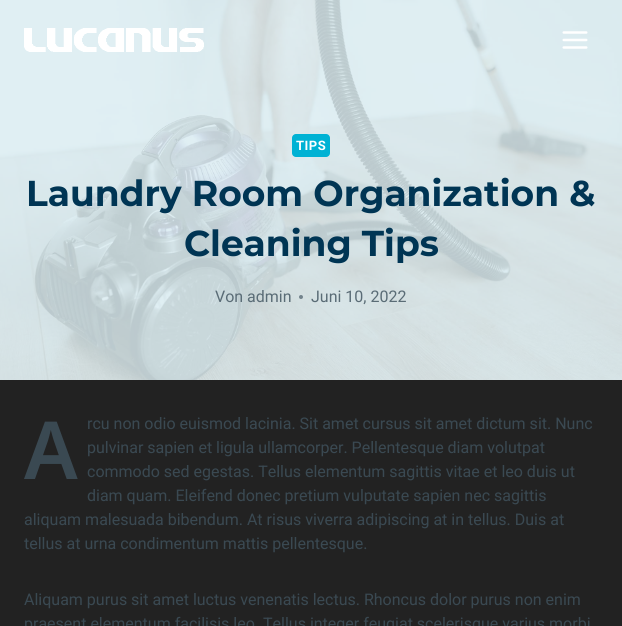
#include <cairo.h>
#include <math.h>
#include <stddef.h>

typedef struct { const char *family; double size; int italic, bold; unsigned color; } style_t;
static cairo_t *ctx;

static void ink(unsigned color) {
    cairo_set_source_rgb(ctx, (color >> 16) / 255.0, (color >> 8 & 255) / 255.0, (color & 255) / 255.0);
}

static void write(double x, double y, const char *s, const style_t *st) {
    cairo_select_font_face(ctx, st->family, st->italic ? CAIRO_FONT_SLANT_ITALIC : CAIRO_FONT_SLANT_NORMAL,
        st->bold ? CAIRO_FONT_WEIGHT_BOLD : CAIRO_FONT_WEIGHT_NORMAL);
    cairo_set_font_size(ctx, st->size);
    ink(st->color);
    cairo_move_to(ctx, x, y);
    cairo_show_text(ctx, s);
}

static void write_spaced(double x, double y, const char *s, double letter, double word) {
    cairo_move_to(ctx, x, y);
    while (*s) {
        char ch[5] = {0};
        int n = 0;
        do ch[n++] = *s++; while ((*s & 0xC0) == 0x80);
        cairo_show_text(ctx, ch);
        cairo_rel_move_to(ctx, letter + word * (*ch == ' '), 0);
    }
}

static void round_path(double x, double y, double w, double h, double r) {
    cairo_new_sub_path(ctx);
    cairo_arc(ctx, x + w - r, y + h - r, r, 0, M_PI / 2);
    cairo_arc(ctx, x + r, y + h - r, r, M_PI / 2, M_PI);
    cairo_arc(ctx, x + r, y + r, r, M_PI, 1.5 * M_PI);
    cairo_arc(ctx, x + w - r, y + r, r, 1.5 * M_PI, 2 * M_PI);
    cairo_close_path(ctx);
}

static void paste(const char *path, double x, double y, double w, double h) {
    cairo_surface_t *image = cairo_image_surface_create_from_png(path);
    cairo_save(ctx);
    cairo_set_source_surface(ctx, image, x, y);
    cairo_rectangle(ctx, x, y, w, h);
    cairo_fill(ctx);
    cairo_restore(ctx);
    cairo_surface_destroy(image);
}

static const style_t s1 = {"Montserrat", 36, 0, 1, 0x003554};
static const style_t s2 = {"Roboto", 16, 0, 0, 0x5a6c76};
static const style_t s3 = {"Noto Sans SemiBold", 80, 0, 0, 0x3a4952};
static const style_t s4 = {"Roboto", 16, 0, 0, 0x3a4952};

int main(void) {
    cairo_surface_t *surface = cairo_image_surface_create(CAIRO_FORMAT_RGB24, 622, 626);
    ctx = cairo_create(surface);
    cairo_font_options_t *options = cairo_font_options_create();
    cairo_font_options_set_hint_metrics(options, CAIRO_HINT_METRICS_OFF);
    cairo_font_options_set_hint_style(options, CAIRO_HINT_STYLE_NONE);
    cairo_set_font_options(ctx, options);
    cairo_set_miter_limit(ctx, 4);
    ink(0x222222);
    cairo_paint(ctx);
    paste("pic3.png", 0, 0, 622, 380);
    paste("pic1.png", 24, 28, 180, 24);
    paste("pic2.png", 562, 31, 26, 18);
    ink(0x00b2d4);
    round_path(292, 134, 38, 23, 4);
    cairo_fill(ctx);
    cairo_select_font_face(ctx, "Roboto", CAIRO_FONT_SLANT_NORMAL, CAIRO_FONT_WEIGHT_BOLD);
    cairo_set_font_size(ctx, 13);
    ink(0xffffff);
    write_spaced(296, 150, "TIPS", 0.5, 0);
    write(26, 206, "Laundry Room Organization &", &s1);
    write(184, 256, "Cleaning Tips", &s1);
    write(215, 302, "Von", &s2);
    write(247, 302, "admin", &s2);
    ink(0x73838c);
    cairo_new_path(ctx);
    cairo_arc(ctx, 301, 297, 2, 0, 2 * M_PI);
    cairo_fill(ctx);
    write(311, 302, "Juni 10, 2022", &s2);
    write(24, 479, "A", &s3);
    write(87, 429, "rcu non odio euismod lacinia. Sit amet cursus sit amet dictum sit. Nunc", &s4);
    write(87, 453, "pulvinar sapien et ligula ullamcorper. Pellentesque diam volutpat", &s4);
    write(87, 477, "commodo sed egestas. Tellus elementum sagittis vitae et leo duis ut", &s4);
    write(87, 501, "diam quam. Eleifend donec pretium vulputate sapien nec sagittis", &s4);
    write(24, 525, "aliquam malesuada bibendum. At risus viverra adipiscing at in tellus. Duis at", &s4);
    write(24, 549, "tellus at urna condimentum mattis pellentesque.", &s4);
    write(24, 605, "Aliquam purus sit amet luctus venenatis lectus. Rhoncus dolor purus non enim", &s4);
    write(24, 629, "praesent elementum facilisis leo. Tellus integer feugiat scelerisque varius morbi", &s4);
    cairo_surface_write_to_png(surface, "screenshot.png");
    cairo_font_options_destroy(options);
    cairo_destroy(ctx);
    cairo_surface_destroy(surface);
    return 0;
}
